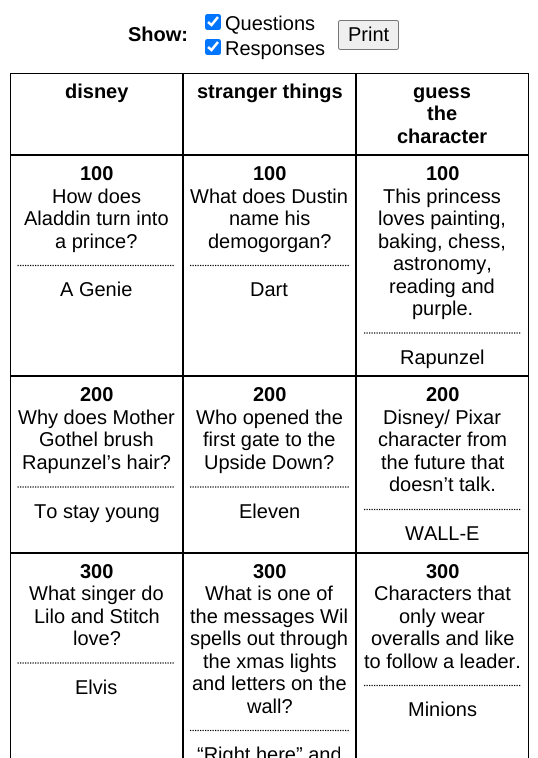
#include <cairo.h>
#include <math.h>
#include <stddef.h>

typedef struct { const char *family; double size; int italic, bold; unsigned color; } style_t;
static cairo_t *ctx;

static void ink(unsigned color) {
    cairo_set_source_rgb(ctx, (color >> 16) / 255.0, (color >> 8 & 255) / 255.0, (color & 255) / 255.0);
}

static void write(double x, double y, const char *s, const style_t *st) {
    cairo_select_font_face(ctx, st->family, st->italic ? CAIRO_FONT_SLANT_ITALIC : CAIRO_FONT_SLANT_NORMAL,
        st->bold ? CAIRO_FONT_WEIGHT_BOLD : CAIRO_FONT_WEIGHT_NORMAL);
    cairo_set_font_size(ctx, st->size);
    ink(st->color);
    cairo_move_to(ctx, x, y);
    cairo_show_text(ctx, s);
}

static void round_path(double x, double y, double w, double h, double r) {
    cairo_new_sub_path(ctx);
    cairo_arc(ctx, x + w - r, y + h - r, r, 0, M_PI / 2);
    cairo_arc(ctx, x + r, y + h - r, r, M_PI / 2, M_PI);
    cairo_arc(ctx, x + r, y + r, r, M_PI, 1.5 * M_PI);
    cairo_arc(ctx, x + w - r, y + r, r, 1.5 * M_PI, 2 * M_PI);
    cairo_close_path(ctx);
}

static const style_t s1 = {"Liberation Sans", 20, 0, 1, 0x000000};
static const style_t s2 = {"Liberation Sans", 20, 0, 0, 0x000000};

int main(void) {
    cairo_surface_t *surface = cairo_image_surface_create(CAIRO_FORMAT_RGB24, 538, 758);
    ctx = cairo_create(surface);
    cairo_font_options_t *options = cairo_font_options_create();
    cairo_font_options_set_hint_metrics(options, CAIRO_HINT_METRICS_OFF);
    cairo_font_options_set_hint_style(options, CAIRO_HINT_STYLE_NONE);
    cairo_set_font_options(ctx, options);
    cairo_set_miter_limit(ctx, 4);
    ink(0xffffff);
    cairo_paint(ctx);
    write(128, 41, "Show:", &s1);
    ink(0x0075ff);
    round_path(205, 14, 16, 16, 2.5);
    cairo_fill(ctx);
    cairo_new_path(ctx);
    cairo_move_to(ctx, 208, 22);
    cairo_line_to(ctx, 211.5, 25);
    cairo_line_to(ctx, 218, 17);
    ink(0xffffff);
    cairo_set_line_width(ctx, 2.6);
    cairo_stroke(ctx);
    write(225, 30, "Questions", &s2);
    ink(0x0075ff);
    round_path(205, 39, 16, 16, 2.5);
    cairo_fill(ctx);
    cairo_new_path(ctx);
    cairo_move_to(ctx, 208, 47);
    cairo_line_to(ctx, 211.5, 50);
    cairo_line_to(ctx, 218, 42);
    ink(0xffffff);
    cairo_stroke(ctx);
    write(225, 55, "Responses", &s2);
    ink(0xefefef);
    round_path(338.5, 20.5, 60, 29, 2);
    cairo_fill_preserve(ctx);
    ink(0x767676);
    cairo_set_line_width(ctx, 1);
    cairo_stroke(ctx);
    write(348, 41, "Print", &s2);
    cairo_rectangle(ctx, 10.5, 73.5, 172, 81);
    cairo_stroke(ctx);
    write(65, 98, "disney", &s1);
    cairo_rectangle(ctx, 183.5, 73.5, 172, 81);
    cairo_stroke(ctx);
    write(197, 98, "stranger things", &s1);
    cairo_rectangle(ctx, 356.5, 73.5, 172, 81);
    cairo_stroke(ctx);
    write(413, 98, "guess", &s1);
    write(427, 120, "the", &s1);
    write(397, 143, "character", &s1);
    cairo_rectangle(ctx, 10.5, 155.5, 172, 220);
    cairo_stroke(ctx);
    write(80, 180, "100", &s1);
    write(52, 203, "How does", &s2);
    write(24, 225, "Aladdin turn into", &s2);
    write(55, 248, "a prince?", &s2);
    cairo_new_path(ctx);
    cairo_move_to(ctx, 17.5, 265.5);
    cairo_line_to(ctx, 175, 265.5);
    cairo_set_line_width(ctx, 1.2);
    cairo_set_dash(ctx, (double[]){1.25, 1.25}, 2, 0);
    cairo_stroke(ctx);
    write(60, 296, "A Genie", &s2);
    cairo_rectangle(ctx, 183.5, 155.5, 172, 220);
    cairo_set_line_width(ctx, 1);
    cairo_set_dash(ctx, NULL, 0, 0);
    cairo_stroke(ctx);
    write(253, 180, "100", &s1);
    write(190, 203, "What does Dustin", &s2);
    write(229, 225, "name his", &s2);
    write(208, 248, "demogorgan?", &s2);
    cairo_new_path(ctx);
    cairo_move_to(ctx, 190, 265.5);
    cairo_line_to(ctx, 349, 265.5);
    cairo_set_line_width(ctx, 1.2);
    cairo_set_dash(ctx, (double[]){1.25, 1.25}, 2, 0);
    cairo_stroke(ctx);
    write(250, 296, "Dart", &s2);
    cairo_rectangle(ctx, 356.5, 155.5, 172, 220);
    cairo_set_line_width(ctx, 1);
    cairo_set_dash(ctx, NULL, 0, 0);
    cairo_stroke(ctx);
    write(426, 180, "100", &s1);
    write(383, 203, "This princess", &s2);
    write(378, 225, "loves painting,", &s2);
    write(378, 248, "baking, chess,", &s2);
    write(393, 270, "astronomy,", &s2);
    write(389, 293, "reading and", &s2);
    write(412, 315, "purple.", &s2);
    cairo_new_path(ctx);
    cairo_move_to(ctx, 364, 333);
    cairo_line_to(ctx, 521, 333);
    cairo_set_line_width(ctx, 1.2);
    cairo_set_dash(ctx, (double[]){1.25, 1.25}, 2, 0);
    cairo_stroke(ctx);
    write(400, 364, "Rapunzel", &s2);
    cairo_rectangle(ctx, 10.5, 376.5, 172, 176);
    cairo_set_line_width(ctx, 1);
    cairo_set_dash(ctx, NULL, 0, 0);
    cairo_stroke(ctx);
    write(80, 401, "200", &s1);
    write(18, 424, "Why does Mother", &s2);
    write(39, 446, "Gothel brush", &s2);
    write(22, 469, "Rapunzel’s hair?", &s2);
    cairo_new_path(ctx);
    cairo_move_to(ctx, 17.5, 487);
    cairo_line_to(ctx, 175, 487);
    cairo_set_line_width(ctx, 1.2);
    cairo_set_dash(ctx, (double[]){1.25, 1.25}, 2, 0);
    cairo_stroke(ctx);
    write(34, 518, "To stay young", &s2);
    cairo_rectangle(ctx, 183.5, 376.5, 172, 176);
    cairo_set_line_width(ctx, 1);
    cairo_set_dash(ctx, NULL, 0, 0);
    cairo_stroke(ctx);
    write(253, 401, "200", &s1);
    write(196, 424, "Who opened the", &s2);
    write(203, 446, "first gate to the", &s2);
    write(204, 469, "Upside Down?", &s2);
    cairo_new_path(ctx);
    cairo_move_to(ctx, 190, 487);
    cairo_line_to(ctx, 349, 487);
    cairo_set_line_width(ctx, 1.2);
    cairo_set_dash(ctx, (double[]){1.25, 1.25}, 2, 0);
    cairo_stroke(ctx);
    write(239, 518, "Eleven", &s2);
    cairo_rectangle(ctx, 356.5, 376.5, 172, 176);
    cairo_set_line_width(ctx, 1);
    cairo_set_dash(ctx, NULL, 0, 0);
    cairo_stroke(ctx);
    write(426, 401, "200", &s1);
    write(383, 424, "Disney/ Pixar", &s2);
    write(378, 446, "character from", &s2);
    write(381, 469, "the future that", &s2);
    write(389, 491, "doesn’t talk.", &s2);
    cairo_new_path(ctx);
    cairo_move_to(ctx, 364, 509.5);
    cairo_line_to(ctx, 521, 509.5);
    cairo_set_line_width(ctx, 1.2);
    cairo_set_dash(ctx, (double[]){1.25, 1.25}, 2, 0);
    cairo_stroke(ctx);
    write(405, 540, "WALL-E", &s2);
    cairo_rectangle(ctx, 10.5, 553.5, 172, 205);
    cairo_set_line_width(ctx, 1);
    cairo_set_dash(ctx, NULL, 0, 0);
    cairo_stroke(ctx);
    write(80, 578, "300", &s1);
    write(29, 600, "What singer do", &s2);
    write(34, 623, "Lilo and Stitch", &s2);
    write(73, 645, "love?", &s2);
    cairo_new_path(ctx);
    cairo_move_to(ctx, 17.5, 663);
    cairo_line_to(ctx, 175, 663);
    cairo_set_line_width(ctx, 1.2);
    cairo_set_dash(ctx, (double[]){1.25, 1.25}, 2, 0);
    cairo_stroke(ctx);
    write(75, 694, "Elvis", &s2);
    cairo_rectangle(ctx, 183.5, 553.5, 172, 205);
    cairo_set_line_width(ctx, 1);
    cairo_set_dash(ctx, NULL, 0, 0);
    cairo_stroke(ctx);
    write(253, 578, "300", &s1);
    write(205, 600, "What is one of", &s2);
    write(190, 623, "the messages Wil", &s2);
    write(190, 645, "spells out through", &s2);
    write(203, 668, "the xmas lights", &s2);
    write(192, 690, "and letters on the", &s2);
    write(247, 713, "wall?", &s2);
    cairo_new_path(ctx);
    cairo_move_to(ctx, 190, 730.5);
    cairo_line_to(ctx, 349, 730.5);
    cairo_set_line_width(ctx, 1.2);
    cairo_set_dash(ctx, (double[]){1.25, 1.25}, 2, 0);
    cairo_stroke(ctx);
    write(197, 761, "“Right here” and", &s2);
    cairo_rectangle(ctx, 356.5, 553.5, 172, 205);
    cairo_set_line_width(ctx, 1);
    cairo_set_dash(ctx, NULL, 0, 0);
    cairo_stroke(ctx);
    write(426, 578, "300", &s1);
    write(374, 600, "Characters that", &s2);
    write(399, 623, "only wear", &s2);
    write(371, 645, "overalls and like", &s2);
    write(364, 668, "to follow a leader.", &s2);
    cairo_new_path(ctx);
    cairo_move_to(ctx, 364, 685.5);
    cairo_line_to(ctx, 521, 685.5);
    cairo_set_line_width(ctx, 1.2);
    cairo_set_dash(ctx, (double[]){1.25, 1.25}, 2, 0);
    cairo_stroke(ctx);
    write(408, 716, "Minions", &s2);
    cairo_surface_write_to_png(surface, "screenshot.png");
    cairo_font_options_destroy(options);
    cairo_destroy(ctx);
    cairo_surface_destroy(surface);
    return 0;
}
